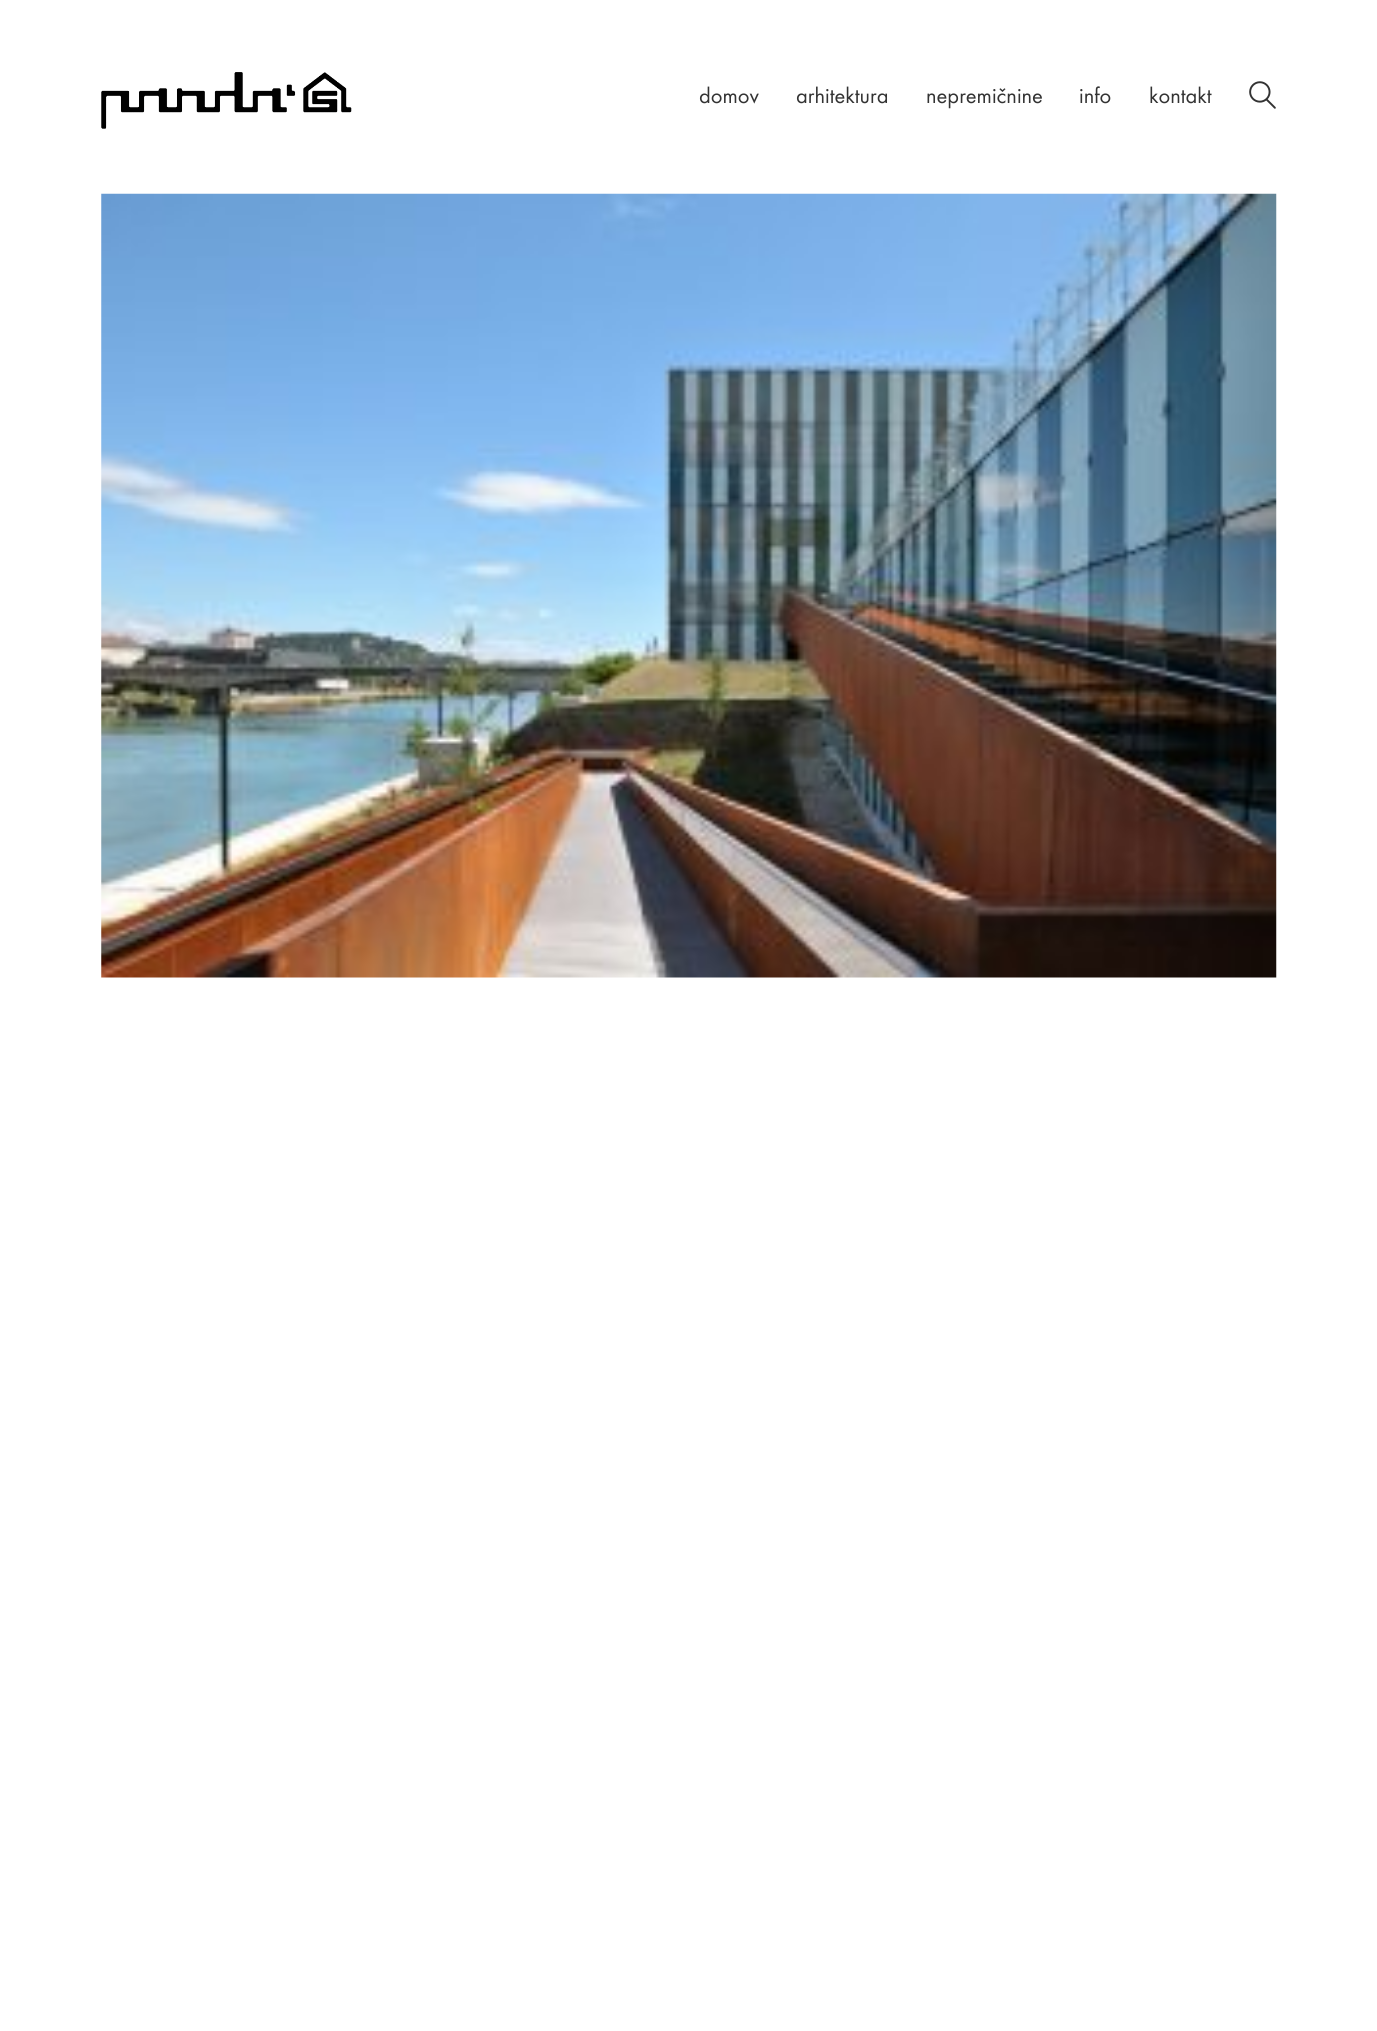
#include <cairo.h>
#include <math.h>
#include <stddef.h>

typedef struct { const char *family; double size; int italic, bold; unsigned color; } style_t;
static cairo_t *ctx;

static void ink(unsigned color) {
    cairo_set_source_rgb(ctx, (color >> 16) / 255.0, (color >> 8 & 255) / 255.0, (color & 255) / 255.0);
}

static void write(double x, double y, const char *s, const style_t *st) {
    cairo_select_font_face(ctx, st->family, st->italic ? CAIRO_FONT_SLANT_ITALIC : CAIRO_FONT_SLANT_NORMAL,
        st->bold ? CAIRO_FONT_WEIGHT_BOLD : CAIRO_FONT_WEIGHT_NORMAL);
    cairo_set_font_size(ctx, st->size);
    ink(st->color);
    cairo_move_to(ctx, x, y);
    cairo_show_text(ctx, s);
}

static void paste(const char *path, double x, double y, double w, double h) {
    cairo_surface_t *image = cairo_image_surface_create_from_png(path);
    cairo_save(ctx);
    cairo_set_source_surface(ctx, image, x, y);
    cairo_rectangle(ctx, x, y, w, h);
    cairo_fill(ctx);
    cairo_restore(ctx);
    cairo_surface_destroy(image);
}

static const style_t s1 = {"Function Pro", 22.5, 0, 0, 0x333333};

int main(void) {
    cairo_surface_t *surface = cairo_image_surface_create(CAIRO_FORMAT_RGB24, 1377, 2031);
    ctx = cairo_create(surface);
    cairo_font_options_t *options = cairo_font_options_create();
    cairo_font_options_set_hint_metrics(options, CAIRO_HINT_METRICS_OFF);
    cairo_font_options_set_hint_style(options, CAIRO_HINT_STYLE_NONE);
    cairo_set_font_options(ctx, options);
    cairo_set_miter_limit(ctx, 4);
    ink(0xffffff);
    cairo_paint(ctx);
    paste("pic1.png", 101, 72, 251, 57);
    write(699, 103, "domov", &s1);
    write(796, 103, "arhitektura", &s1);
    write(926, 103, "nepremičnine", &s1);
    write(1079, 103, "info", &s1);
    write(1149, 103, "kontakt", &s1);
    paste("pic2.png", 1249, 81, 27, 28);
    paste("pic3.png", 101, 193, 1176, 785);
    cairo_surface_write_to_png(surface, "screenshot.png");
    cairo_font_options_destroy(options);
    cairo_destroy(ctx);
    cairo_surface_destroy(surface);
    return 0;
}
